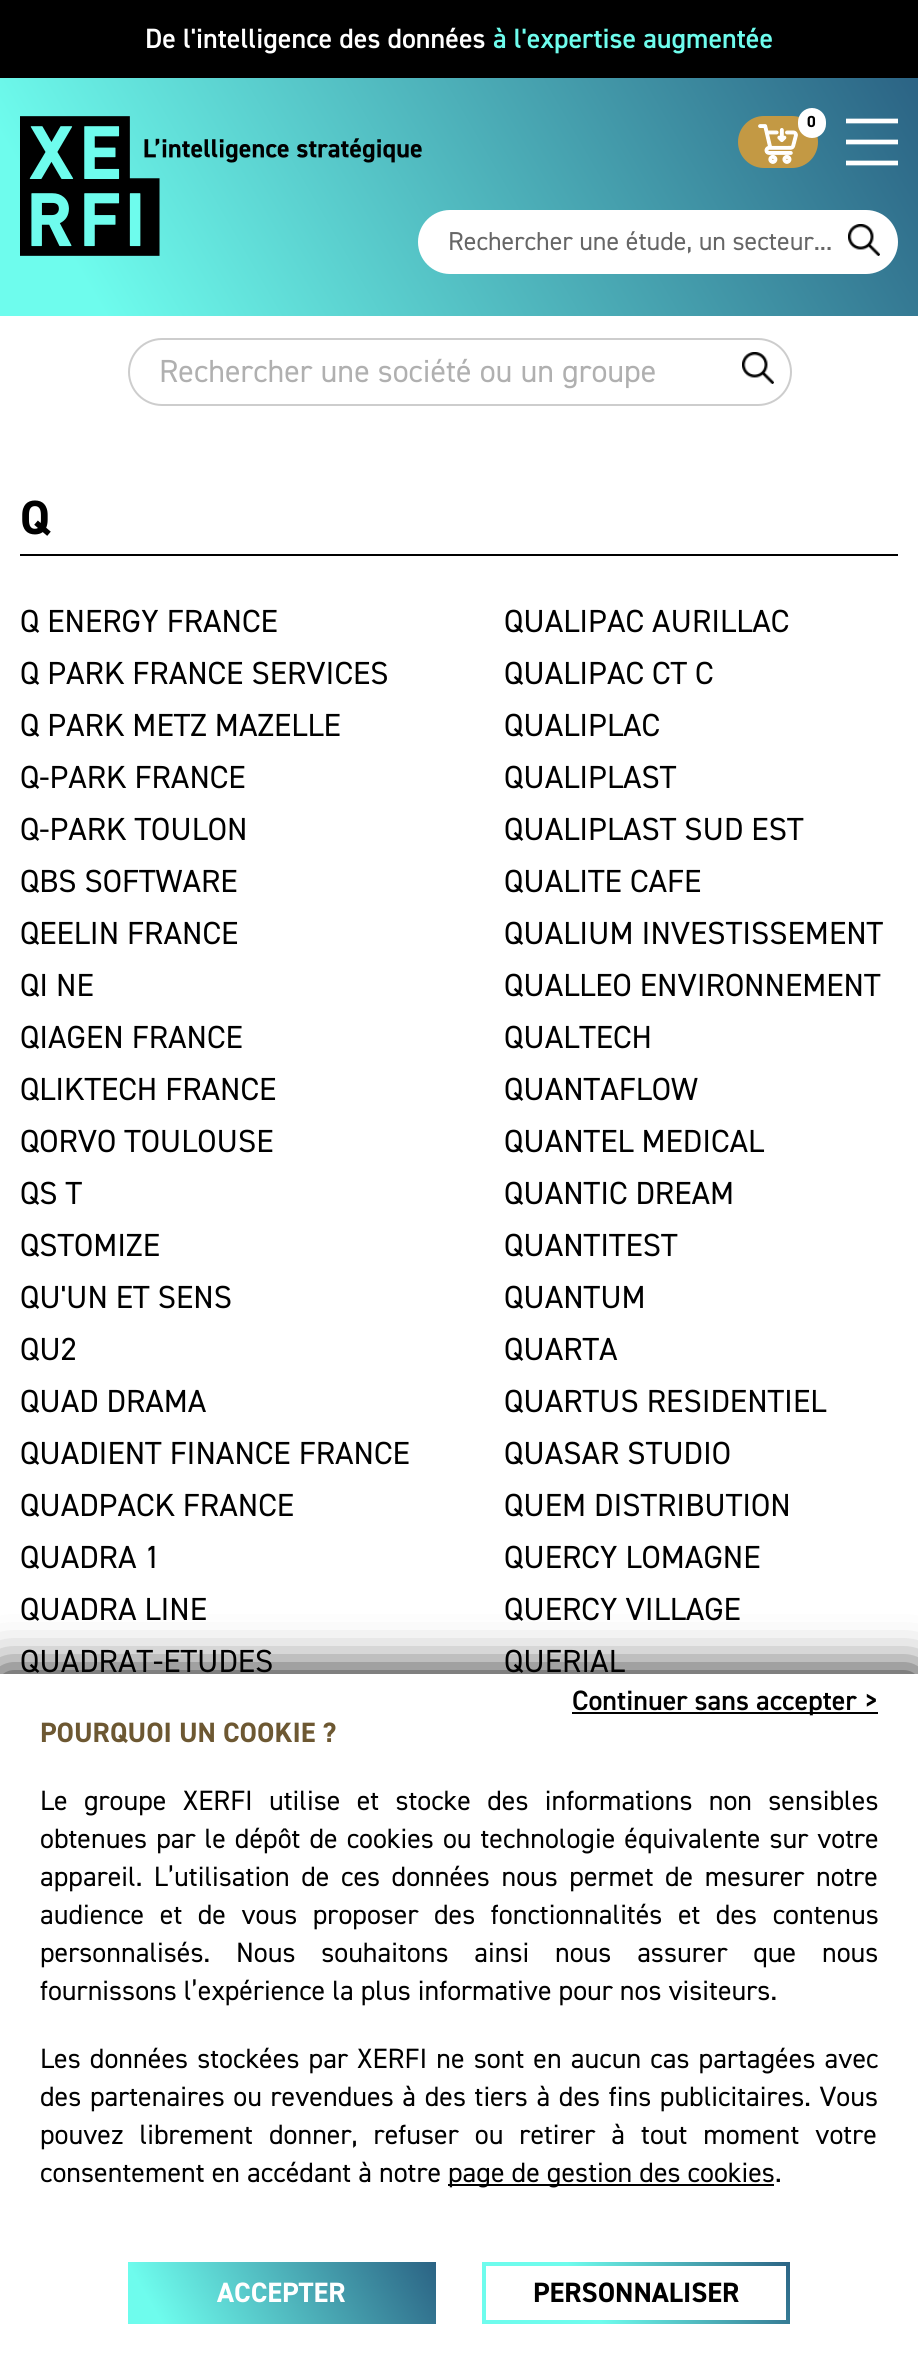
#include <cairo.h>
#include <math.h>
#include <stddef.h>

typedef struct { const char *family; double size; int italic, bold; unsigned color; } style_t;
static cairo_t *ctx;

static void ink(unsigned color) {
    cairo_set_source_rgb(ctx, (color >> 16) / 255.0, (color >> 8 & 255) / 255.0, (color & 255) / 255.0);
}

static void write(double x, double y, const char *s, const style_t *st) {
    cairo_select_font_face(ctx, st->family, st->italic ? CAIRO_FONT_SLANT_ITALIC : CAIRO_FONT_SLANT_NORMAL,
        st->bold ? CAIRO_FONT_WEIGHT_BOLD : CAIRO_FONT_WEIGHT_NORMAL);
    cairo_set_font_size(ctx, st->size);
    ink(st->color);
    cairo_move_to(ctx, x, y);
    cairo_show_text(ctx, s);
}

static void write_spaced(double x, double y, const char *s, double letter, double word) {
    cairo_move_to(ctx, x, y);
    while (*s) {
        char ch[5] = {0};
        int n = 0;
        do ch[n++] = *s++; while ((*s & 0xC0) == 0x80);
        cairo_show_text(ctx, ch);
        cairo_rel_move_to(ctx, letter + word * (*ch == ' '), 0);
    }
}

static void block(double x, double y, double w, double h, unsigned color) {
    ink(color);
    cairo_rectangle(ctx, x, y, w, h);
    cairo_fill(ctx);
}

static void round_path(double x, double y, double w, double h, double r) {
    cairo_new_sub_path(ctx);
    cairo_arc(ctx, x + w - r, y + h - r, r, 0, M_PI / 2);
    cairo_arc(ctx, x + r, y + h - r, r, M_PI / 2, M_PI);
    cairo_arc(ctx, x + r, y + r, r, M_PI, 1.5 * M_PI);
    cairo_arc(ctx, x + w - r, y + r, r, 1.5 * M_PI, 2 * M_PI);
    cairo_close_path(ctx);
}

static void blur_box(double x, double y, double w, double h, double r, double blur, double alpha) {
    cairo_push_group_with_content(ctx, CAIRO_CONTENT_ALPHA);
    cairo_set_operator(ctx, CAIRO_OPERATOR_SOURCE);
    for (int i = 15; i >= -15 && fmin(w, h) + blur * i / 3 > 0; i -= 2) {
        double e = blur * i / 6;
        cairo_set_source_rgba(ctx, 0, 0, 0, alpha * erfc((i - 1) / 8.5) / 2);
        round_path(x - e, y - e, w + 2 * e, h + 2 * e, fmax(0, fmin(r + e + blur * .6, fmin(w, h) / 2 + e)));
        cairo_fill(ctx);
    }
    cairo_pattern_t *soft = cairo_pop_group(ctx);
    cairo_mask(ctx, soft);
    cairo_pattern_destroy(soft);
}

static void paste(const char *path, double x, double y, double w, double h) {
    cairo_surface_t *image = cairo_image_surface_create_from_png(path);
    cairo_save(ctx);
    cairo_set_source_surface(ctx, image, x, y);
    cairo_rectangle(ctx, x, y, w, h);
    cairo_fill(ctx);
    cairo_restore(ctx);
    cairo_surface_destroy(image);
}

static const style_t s1 = {"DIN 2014 SemiBold", 28, 0, 0, 0xffffff};
static const style_t s2 = {"DIN 2014 SemiBold", 28, 0, 0, 0x6efced};
static const style_t s3 = {"DIN 2014", 16, 0, 1, 0x000000};
static const style_t s4 = {"DIN 2014", 26, 0, 0, 0x666666};
static const style_t s5 = {"DIN 2014", 32, 0, 0, 0xb0b0b0};
static const style_t s6 = {"DIN 2014", 48, 0, 1, 0x000000};
static const style_t s7 = {"DIN 2014", 32, 0, 0, 0x000000};
static const style_t s8 = {"DIN 2014 SemiBold", 28, 0, 0, 0x000000};
static const style_t s9 = {"DIN 2014", 28, 0, 1, 0x6d5832};
static const style_t s10 = {"DIN 2014", 28, 0, 0, 0x000000};
static const style_t s11 = {"DIN 2014", 28, 0, 1, 0xffffff};
static const style_t s12 = {"DIN 2014", 28, 0, 1, 0x000000};

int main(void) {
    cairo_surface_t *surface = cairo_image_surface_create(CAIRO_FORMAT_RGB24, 918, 2373);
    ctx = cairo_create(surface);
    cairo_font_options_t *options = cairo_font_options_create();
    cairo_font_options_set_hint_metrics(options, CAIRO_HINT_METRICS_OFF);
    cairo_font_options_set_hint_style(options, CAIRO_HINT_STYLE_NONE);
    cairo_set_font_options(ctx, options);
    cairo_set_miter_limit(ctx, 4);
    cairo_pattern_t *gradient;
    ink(0xffffff);
    cairo_paint(ctx);
    block(0, 0, 918, 78, 0x000000);
    write(145, 48, "De l'intelligence des données", &s1);
    write(493, 48, "à l'expertise augmentée", &s2);
    gradient = cairo_pattern_create_linear(63, 425, 855, -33);
    cairo_pattern_add_color_stop_rgba(gradient, 0.1, 0.431, 0.988, 0.929, 1);
    cairo_pattern_add_color_stop_rgba(gradient, 1, 0.169, 0.388, 0.518, 1);
    cairo_set_source(ctx, gradient);
    cairo_pattern_destroy(gradient);
    cairo_rectangle(ctx, 0, 78, 918, 238);
    cairo_fill(ctx);
    paste("pic1.png", 20, 116, 402, 140);
    ink(0xc39944);
    round_path(738, 116, 80, 52, 26);
    cairo_fill(ctx);
    ink(0xffffff);
    round_path(798, 108, 28, 30, 14);
    cairo_fill(ctx);
    write(807, 127, "0", &s3);
    paste("pic2.png", 758, 124, 40, 40);
    cairo_new_path(ctx);
    cairo_move_to(ctx, 846, 121);
    cairo_line_to(ctx, 898, 121);
    cairo_move_to(ctx, 846, 142);
    cairo_line_to(ctx, 898, 142);
    cairo_move_to(ctx, 846, 163);
    cairo_line_to(ctx, 898, 163);
    ink(0xffffff);
    cairo_set_line_width(ctx, 4.7);
    cairo_stroke(ctx);
    round_path(418, 210, 480, 64, 32);
    cairo_fill(ctx);
    write(448, 250, "Rechercher une étude, un secteur...", &s4);
    paste("pic3.png", 848, 224, 32, 32);
    round_path(129, 339, 662, 66, 33);
    ink(0xcdcdcd);
    cairo_set_line_width(ctx, 2);
    cairo_stroke(ctx);
    write(159, 382, "Rechercher une société ou un groupe", &s5);
    paste("pic3.png", 742, 352, 32, 32);
    block(20, 554, 878, 2, 0x000000);
    write(20, 534, "Q", &s6);
    write(20, 632, "Q ENERGY FRANCE", &s7);
    write(504, 632, "QUALIPAC AURILLAC", &s7);
    write(20, 684, "Q PARK FRANCE SERVICES", &s7);
    write(504, 684, "QUALIPAC CT C", &s7);
    write(20, 736, "Q PARK METZ MAZELLE", &s7);
    write(504, 736, "QUALIPLAC", &s7);
    write(20, 788, "Q-PARK FRANCE", &s7);
    write(504, 788, "QUALIPLAST", &s7);
    write(20, 840, "Q-PARK TOULON", &s7);
    write(504, 840, "QUALIPLAST SUD EST", &s7);
    write(20, 892, "QBS SOFTWARE", &s7);
    write(504, 892, "QUALITE CAFE", &s7);
    write(20, 944, "QEELIN FRANCE", &s7);
    write(504, 944, "QUALIUM INVESTISSEMENT", &s7);
    write(20, 996, "QI NE", &s7);
    write(504, 996, "QUALLEO ENVIRONNEMENT", &s7);
    write(20, 1048, "QIAGEN FRANCE", &s7);
    write(504, 1048, "QUALTECH", &s7);
    write(20, 1100, "QLIKTECH FRANCE", &s7);
    write(504, 1100, "QUANTAFLOW", &s7);
    write(20, 1152, "QORVO TOULOUSE", &s7);
    write(504, 1152, "QUANTEL MEDICAL", &s7);
    write(20, 1204, "QS T", &s7);
    write(504, 1204, "QUANTIC DREAM", &s7);
    write(20, 1256, "QSTOMIZE", &s7);
    write(504, 1256, "QUANTITEST", &s7);
    write(20, 1308, "QU'UN ET SENS", &s7);
    write(504, 1308, "QUANTUM", &s7);
    write(20, 1360, "QU2", &s7);
    write(504, 1360, "QUARTA", &s7);
    write(20, 1412, "QUAD DRAMA", &s7);
    write(504, 1412, "QUARTUS RESIDENTIEL", &s7);
    write(20, 1464, "QUADIENT FINANCE FRANCE", &s7);
    write(504, 1464, "QUASAR STUDIO", &s7);
    write(20, 1516, "QUADPACK FRANCE", &s7);
    write(504, 1516, "QUEM DISTRIBUTION", &s7);
    write(20, 1568, "QUADRA 1", &s7);
    write(504, 1568, "QUERCY LOMAGNE", &s7);
    write(20, 1620, "QUADRA LINE", &s7);
    write(504, 1620, "QUERCY VILLAGE", &s7);
    write(20, 1672, "QUADRAT-ETUDES", &s7);
    write(504, 1672, "QUERIAL", &s7);
    ink(0x000000);
    blur_box(0, 1674, 918, 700, 0, 24, 1);
    block(0, 1674, 918, 699, 0xffffff);
    block(572, 1712, 306, 2, 0x000000);
    write(572, 1710, "Continuer sans accepter >", &s8);
    write(40, 1742, "POURQUOI UN COOKIE ?", &s9);
    cairo_select_font_face(ctx, "DIN 2014", CAIRO_FONT_SLANT_NORMAL, CAIRO_FONT_WEIGHT_NORMAL);
    ink(0x000000);
    write_spaced(40, 1810, "Le groupe XERFI utilise et stocke des informations non sensibles", 0, 9.25);
    write_spaced(40, 1848, "obtenues par le dépôt de cookies ou technologie équivalente sur votre", 0, 2);
    write_spaced(40, 1886, "appareil. L’utilisation de ces données nous permet de mesurer notre", 0, 4.5);
    write_spaced(40, 1924, "audience et de vous proposer des fonctionnalités et des contenus", 0, 8.5);
    write_spaced(40, 1962, "personnalisés. Nous souhaitons ainsi nous assurer que nous", 0, 18.75);
    write(40, 2000, "fournissons l’expérience la plus informative pour nos visiteurs.", &s10);
    write_spaced(40, 2068, "Les données stockées par XERFI ne sont en aucun cas partagées avec", 0, 2.1);
    write_spaced(40, 2106, "des partenaires ou revendues à des tiers à des fins publicitaires. Vous", 0, 1.6);
    write_spaced(40, 2144, "pouvez librement donner, refuser ou retirer à tout moment votre", 0, 9);
    write(40, 2182, "consentement en accédant à notre", &s10);
    block(448, 2184, 326, 2, 0x000000);
    write(448, 2182, "page de gestion des cookies", &s10);
    write(775, 2182, ".", &s10);
    gradient = cairo_pattern_create_linear(153, 2367, 411, 2219);
    cairo_pattern_add_color_stop_rgba(gradient, 0.1, 0.431, 0.988, 0.929, 1);
    cairo_pattern_add_color_stop_rgba(gradient, 1, 0.169, 0.388, 0.518, 1);
    cairo_set_source(ctx, gradient);
    cairo_pattern_destroy(gradient);
    cairo_rectangle(ctx, 128, 2262, 308, 62);
    cairo_fill(ctx);
    write(217, 2302, "ACCEPTER", &s11);
    gradient = cairo_pattern_create_linear(507, 2367, 765, 2219);
    cairo_pattern_add_color_stop_rgba(gradient, 0.35, 0.431, 0.988, 0.929, 1);
    cairo_pattern_add_color_stop_rgba(gradient, 1, 0.169, 0.388, 0.518, 1);
    cairo_set_source(ctx, gradient);
    cairo_pattern_destroy(gradient);
    cairo_rectangle(ctx, 482, 2262, 308, 62);
    cairo_fill(ctx);
    block(486, 2266, 300, 54, 0xffffff);
    write(533, 2302, "PERSONNALISER", &s12);
    cairo_surface_write_to_png(surface, "screenshot.png");
    cairo_font_options_destroy(options);
    cairo_destroy(ctx);
    cairo_surface_destroy(surface);
    return 0;
}
